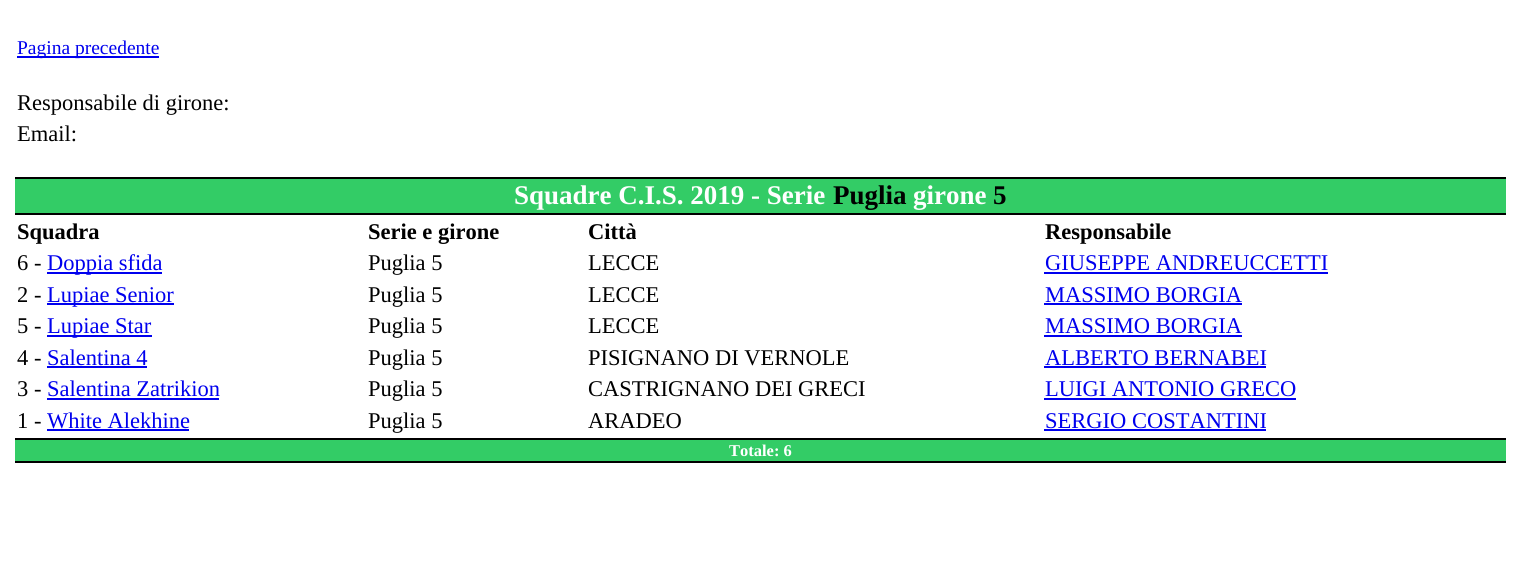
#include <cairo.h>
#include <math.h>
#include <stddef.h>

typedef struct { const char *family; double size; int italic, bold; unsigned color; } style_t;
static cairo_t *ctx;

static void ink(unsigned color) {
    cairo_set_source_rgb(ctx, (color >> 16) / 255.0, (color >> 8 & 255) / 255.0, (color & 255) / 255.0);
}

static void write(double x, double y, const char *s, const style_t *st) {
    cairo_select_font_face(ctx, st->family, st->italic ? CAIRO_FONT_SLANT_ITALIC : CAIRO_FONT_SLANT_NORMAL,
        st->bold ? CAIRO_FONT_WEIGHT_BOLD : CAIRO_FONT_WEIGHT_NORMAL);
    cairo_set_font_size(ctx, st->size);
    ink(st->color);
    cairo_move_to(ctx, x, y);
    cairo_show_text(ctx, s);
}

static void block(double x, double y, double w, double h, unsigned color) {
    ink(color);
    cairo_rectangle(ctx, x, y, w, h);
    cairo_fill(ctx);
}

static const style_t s1 = {"Liberation Serif", 19.5, 0, 0, 0x0000ee};
static const style_t s2 = {"Liberation Serif", 22.5, 0, 0, 0x000000};
static const style_t s3 = {"Liberation Serif", 27, 0, 1, 0xffffff};
static const style_t s4 = {"Liberation Serif", 27, 0, 1, 0x000000};
static const style_t s5 = {"Liberation Serif", 22.5, 0, 1, 0x000000};
static const style_t s6 = {"Liberation Serif", 22.5, 0, 0, 0x0000ee};
static const style_t s7 = {"Liberation Serif", 16.5, 0, 1, 0xffffff};

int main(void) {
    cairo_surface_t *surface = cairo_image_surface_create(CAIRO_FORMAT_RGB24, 1520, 583);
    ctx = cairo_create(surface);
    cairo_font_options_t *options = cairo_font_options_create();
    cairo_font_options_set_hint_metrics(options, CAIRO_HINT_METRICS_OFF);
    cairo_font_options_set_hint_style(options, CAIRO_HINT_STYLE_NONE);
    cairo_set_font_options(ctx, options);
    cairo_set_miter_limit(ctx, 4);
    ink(0xffffff);
    cairo_paint(ctx);
    block(17, 56, 142, 2, 0x0000ee);
    write(17, 54, "Pagina precedente", &s1);
    write(17, 110, "Responsabile di girone:", &s2);
    write(17, 141, "Email:", &s2);
    block(15, 179, 1491, 34, 0x33cc66);
    block(15, 177, 1491, 2, 0x000000);
    block(15, 213, 1491, 2, 0x000000);
    write(514, 204, "Squadre C.I.S. 2019 - Serie", &s3);
    write(833, 204, "Puglia", &s4);
    write(913, 204, "girone", &s3);
    write(993, 204, "5", &s4);
    write(17, 239, "Squadra", &s5);
    write(368, 239, "Serie e girone", &s5);
    write(588, 239, "Città", &s5);
    write(1045, 239, "Responsabile", &s5);
    write(17, 270, "6 -", &s2);
    block(47, 272, 115, 2, 0x0000ee);
    write(47, 270, "Doppia sfida", &s6);
    write(368, 270, "Puglia 5", &s2);
    write(588, 270, "LECCE", &s2);
    write(1045, 270, "GIUSEPPE ANDREUCCETTI", &s6);
    block(1044, 272, 284, 2, 0x0000ee);
    write(17, 302, "2 -", &s2);
    block(47, 303, 127, 2, 0x0000ee);
    write(47, 302, "Lupiae Senior", &s6);
    write(368, 302, "Puglia 5", &s2);
    write(588, 302, "LECCE", &s2);
    write(1045, 302, "MASSIMO BORGIA", &s6);
    block(1044, 303, 198, 2, 0x0000ee);
    write(17, 333, "5 -", &s2);
    block(47, 335, 105, 2, 0x0000ee);
    write(47, 333, "Lupiae Star", &s6);
    write(368, 333, "Puglia 5", &s2);
    write(588, 333, "LECCE", &s2);
    write(1045, 333, "MASSIMO BORGIA", &s6);
    block(1044, 335, 198, 2, 0x0000ee);
    write(17, 365, "4 -", &s2);
    write(47, 365, "Salentina 4", &s6);
    block(47, 366, 100, 2, 0x0000ee);
    write(368, 365, "Puglia 5", &s2);
    write(588, 365, "PISIGNANO DI VERNOLE", &s2);
    write(1045, 365, "ALBERTO BERNABEI", &s6);
    block(1044, 366, 222, 2, 0x0000ee);
    write(17, 396, "3 -", &s2);
    write(47, 396, "Salentina Zatrikion", &s6);
    block(47, 398, 172, 2, 0x0000ee);
    write(368, 396, "Puglia 5", &s2);
    write(588, 396, "CASTRIGNANO DEI GRECI", &s2);
    write(1045, 396, "LUIGI ANTONIO GRECO", &s6);
    block(1044, 398, 252, 2, 0x0000ee);
    write(17, 428, "1 -", &s2);
    write(47, 428, "White Alekhine", &s6);
    block(47, 429, 142, 2, 0x0000ee);
    write(368, 428, "Puglia 5", &s2);
    write(588, 428, "ARADEO", &s2);
    write(1045, 428, "SERGIO COSTANTINI", &s6);
    block(1044, 429, 222, 2, 0x0000ee);
    block(15, 440, 1491, 21, 0x33cc66);
    block(15, 438, 1491, 2, 0x000000);
    block(15, 461, 1491, 2, 0x000000);
    write(729, 456, "Totale: 6", &s7);
    cairo_surface_write_to_png(surface, "screenshot.png");
    cairo_font_options_destroy(options);
    cairo_destroy(ctx);
    cairo_surface_destroy(surface);
    return 0;
}
